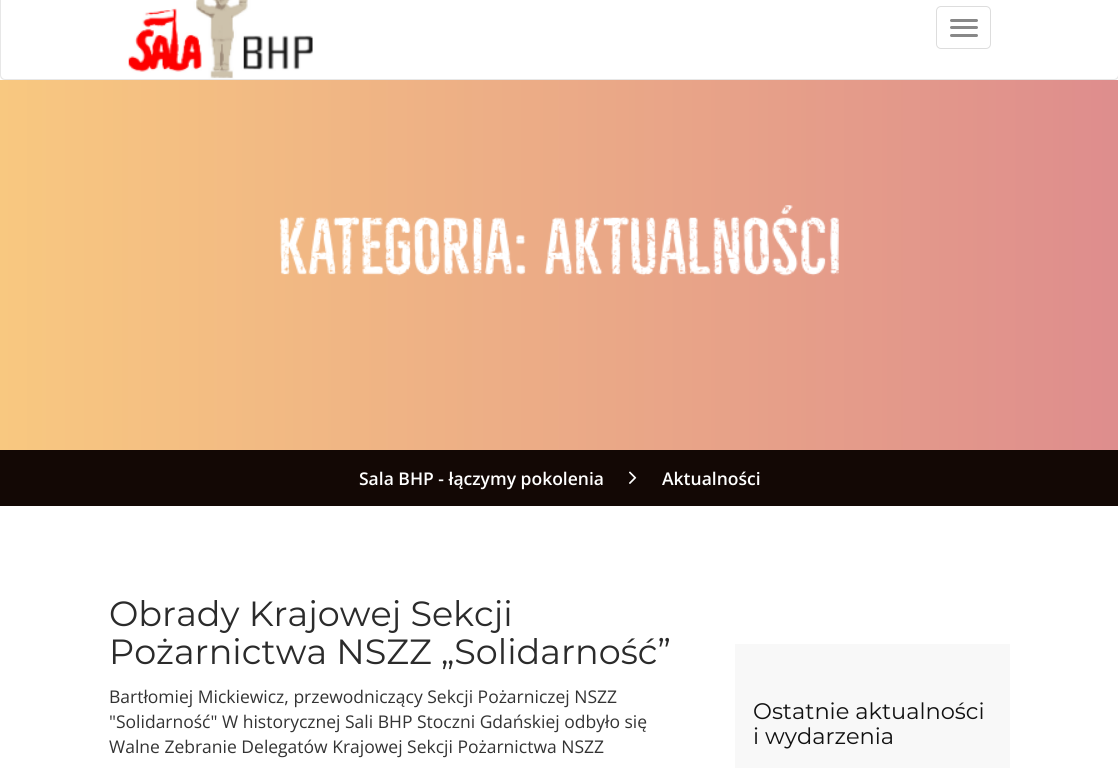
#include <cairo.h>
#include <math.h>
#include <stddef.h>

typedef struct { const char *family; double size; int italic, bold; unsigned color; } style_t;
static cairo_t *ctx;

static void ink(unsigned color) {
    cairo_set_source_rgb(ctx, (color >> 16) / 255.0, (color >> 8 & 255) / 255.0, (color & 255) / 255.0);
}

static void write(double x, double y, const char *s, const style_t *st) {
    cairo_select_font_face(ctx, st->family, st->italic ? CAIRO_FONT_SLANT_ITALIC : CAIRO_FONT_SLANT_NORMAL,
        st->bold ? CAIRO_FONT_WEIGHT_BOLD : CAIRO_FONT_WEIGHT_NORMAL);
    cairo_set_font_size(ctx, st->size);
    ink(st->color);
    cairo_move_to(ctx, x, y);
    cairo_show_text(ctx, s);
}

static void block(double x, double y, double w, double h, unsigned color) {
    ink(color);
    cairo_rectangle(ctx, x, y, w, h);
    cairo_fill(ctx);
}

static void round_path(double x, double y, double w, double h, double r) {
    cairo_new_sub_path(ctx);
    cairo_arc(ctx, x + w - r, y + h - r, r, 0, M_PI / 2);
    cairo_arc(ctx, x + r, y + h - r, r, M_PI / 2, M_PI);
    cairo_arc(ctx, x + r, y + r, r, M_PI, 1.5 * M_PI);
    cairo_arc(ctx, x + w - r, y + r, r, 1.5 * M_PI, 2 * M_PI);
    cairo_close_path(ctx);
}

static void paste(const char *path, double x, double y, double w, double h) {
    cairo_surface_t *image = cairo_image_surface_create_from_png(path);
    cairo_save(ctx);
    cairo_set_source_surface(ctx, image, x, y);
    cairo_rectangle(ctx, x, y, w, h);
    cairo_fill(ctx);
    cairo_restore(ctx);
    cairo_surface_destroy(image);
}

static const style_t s1 = {"Open Sans SemiBold", 17.5, 0, 0, 0xffffff};
static const style_t s2 = {"Montserrat", 35, 0, 0, 0x2b2b2b};
static const style_t s3 = {"Open Sans", 17.5, 0, 0, 0x333333};
static const style_t s4 = {"Montserrat", 22.5, 0, 0, 0x111111};

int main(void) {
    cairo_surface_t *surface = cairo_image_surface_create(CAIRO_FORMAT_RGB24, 1118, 768);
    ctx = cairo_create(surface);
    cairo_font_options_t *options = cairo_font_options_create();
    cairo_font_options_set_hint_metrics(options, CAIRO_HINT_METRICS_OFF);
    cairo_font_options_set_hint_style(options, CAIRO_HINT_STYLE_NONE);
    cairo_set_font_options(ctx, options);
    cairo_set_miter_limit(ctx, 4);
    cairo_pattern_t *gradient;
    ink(0xffffff);
    cairo_paint(ctx);
    ink(0xe7e7e7);
    cairo_set_fill_rule(ctx, CAIRO_FILL_RULE_EVEN_ODD);
    cairo_new_path(ctx);
    cairo_move_to(ctx, 5, -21);
    cairo_line_to(ctx, 1114, -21);
    cairo_curve_to(ctx, 1117, -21, 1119, -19, 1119, -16);
    cairo_line_to(ctx, 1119, 75);
    cairo_curve_to(ctx, 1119, 78, 1117, 80, 1114, 80);
    cairo_line_to(ctx, 5, 80);
    cairo_curve_to(ctx, 2, 80, 0, 78, 0, 75);
    cairo_line_to(ctx, 0, -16);
    cairo_curve_to(ctx, 0, -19, 2, -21, 5, -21);
    cairo_close_path(ctx);
    cairo_move_to(ctx, 5, -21);
    cairo_line_to(ctx, 1114, -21);
    cairo_curve_to(ctx, 1116, -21, 1118, -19, 1118, -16);
    cairo_line_to(ctx, 1118, 75);
    cairo_curve_to(ctx, 1118, 77, 1116, 79, 1114, 79);
    cairo_line_to(ctx, 5, 79);
    cairo_curve_to(ctx, 3, 79, 1, 77, 1, 75);
    cairo_line_to(ctx, 1, -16);
    cairo_curve_to(ctx, 1, -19, 3, -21, 5, -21);
    cairo_close_path(ctx);
    cairo_fill(ctx);
    paste("pic1.png", 128, 0, 185, 79);
    round_path(936.5, 6.5, 54, 42, 4.5);
    ink(0xdddddd);
    cairo_set_line_width(ctx, 1);
    cairo_stroke(ctx);
    ink(0x888888);
    round_path(950, 19, 28, 3, 1.5);
    cairo_fill(ctx);
    round_path(950, 26, 28, 3, 1.5);
    cairo_fill(ctx);
    round_path(950, 34, 28, 3, 1.5);
    cairo_fill(ctx);
    gradient = cairo_pattern_create_linear(0, 265, 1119, 265);
    cairo_pattern_add_color_stop_rgba(gradient, 0, 0.973, 0.784, 0.502, 1);
    cairo_pattern_add_color_stop_rgba(gradient, 1, 0.871, 0.553, 0.553, 1);
    cairo_set_source(ctx, gradient);
    cairo_pattern_destroy(gradient);
    cairo_rectangle(ctx, 0, 80, 1118, 370);
    cairo_fill(ctx);
    paste("pic2.png", 279, 216, 247, 60);
    paste("pic3.png", 545, 205, 294, 71);
    block(0, 450, 1118, 56, 0x130805);
    write(359, 485, "Sala BHP - łączymy pokolenia", &s1);
    paste("pic4.png", 629, 471, 8, 13);
    write(662, 485, "Aktualności", &s1);
    write(109, 626, "Obrady Krajowej Sekcji", &s2);
    write(109, 664, "Pożarnictwa NSZZ „Solidarność”", &s2);
    write(109, 703, "Bartłomiej Mickiewicz, przewodniczący Sekcji Pożarniczej NSZZ", &s3);
    write(109, 728, "\"Solidarność\" W historycznej Sali BHP Stoczni Gdańskiej odbyło się", &s3);
    write(109, 753, "Walne Zebranie Delegatów Krajowej Sekcji Pożarnictwa NSZZ", &s3);
    block(735, 644, 275, 124, 0xf8f8f8);
    write(753, 719, "Ostatnie aktualności", &s4);
    write(753, 744, "i wydarzenia", &s4);
    cairo_surface_write_to_png(surface, "screenshot.png");
    cairo_font_options_destroy(options);
    cairo_destroy(ctx);
    cairo_surface_destroy(surface);
    return 0;
}
